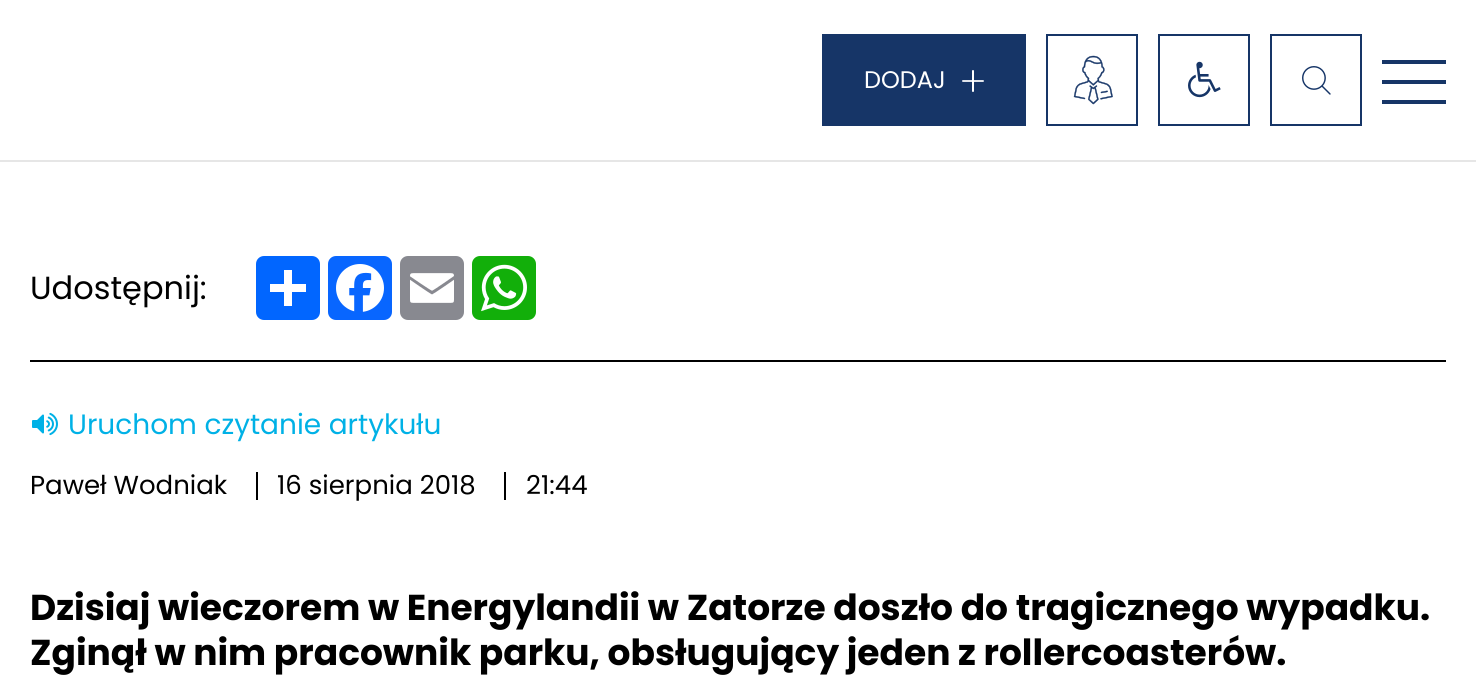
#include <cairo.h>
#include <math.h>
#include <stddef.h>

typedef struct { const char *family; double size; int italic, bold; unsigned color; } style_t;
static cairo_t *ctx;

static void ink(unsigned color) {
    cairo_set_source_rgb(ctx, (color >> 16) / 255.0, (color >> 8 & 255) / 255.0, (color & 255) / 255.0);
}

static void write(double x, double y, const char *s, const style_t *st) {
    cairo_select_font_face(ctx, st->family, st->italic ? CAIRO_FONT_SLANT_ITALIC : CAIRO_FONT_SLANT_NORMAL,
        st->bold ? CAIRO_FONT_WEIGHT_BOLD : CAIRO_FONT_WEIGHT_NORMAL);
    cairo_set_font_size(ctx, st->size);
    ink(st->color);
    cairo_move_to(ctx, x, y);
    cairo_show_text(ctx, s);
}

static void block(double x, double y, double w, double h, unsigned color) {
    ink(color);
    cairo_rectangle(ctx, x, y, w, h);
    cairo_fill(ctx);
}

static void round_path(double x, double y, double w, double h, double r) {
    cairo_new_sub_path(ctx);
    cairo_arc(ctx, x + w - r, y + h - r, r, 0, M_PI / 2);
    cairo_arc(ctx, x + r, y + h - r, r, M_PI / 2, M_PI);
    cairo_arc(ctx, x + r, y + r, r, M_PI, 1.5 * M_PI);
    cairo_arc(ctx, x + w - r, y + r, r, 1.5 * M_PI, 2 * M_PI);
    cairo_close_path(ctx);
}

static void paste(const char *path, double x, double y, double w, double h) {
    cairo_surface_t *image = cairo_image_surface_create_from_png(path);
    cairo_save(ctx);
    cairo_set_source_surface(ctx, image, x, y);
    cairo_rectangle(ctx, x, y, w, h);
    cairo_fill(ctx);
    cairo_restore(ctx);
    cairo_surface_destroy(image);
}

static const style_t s1 = {"Poppins", 24, 0, 0, 0xffffff};
static const style_t s2 = {"Poppins", 32, 0, 0, 0x000000};
static const style_t s3 = {"Poppins", 28, 0, 0, 0x00b1e6};
static const style_t s4 = {"Poppins", 26, 0, 0, 0x000000};
static const style_t s5 = {"Poppins", 36, 0, 1, 0x000000};

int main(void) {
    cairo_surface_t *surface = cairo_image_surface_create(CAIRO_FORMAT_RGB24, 1476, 689);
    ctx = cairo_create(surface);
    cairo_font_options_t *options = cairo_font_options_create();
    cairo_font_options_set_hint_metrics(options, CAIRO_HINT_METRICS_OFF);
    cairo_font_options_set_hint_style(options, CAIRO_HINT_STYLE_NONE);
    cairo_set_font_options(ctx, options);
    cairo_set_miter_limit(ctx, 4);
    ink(0xffffff);
    cairo_paint(ctx);
    block(0, 160, 1476, 2, 0xe6e6e6);
    block(822, 34, 204, 92, 0x163567);
    write(864, 88, "DODAJ", &s1);
    paste("pic1.png", 962, 70, 22, 22);
    cairo_rectangle(ctx, 1047, 35, 90, 90);
    ink(0x163567);
    cairo_stroke(ctx);
    paste("pic2.png", 1073, 55, 40, 50);
    cairo_rectangle(ctx, 1159, 35, 90, 90);
    cairo_stroke(ctx);
    paste("pic3.png", 1188, 61, 33, 37);
    cairo_rectangle(ctx, 1271, 35, 90, 90);
    cairo_stroke(ctx);
    paste("pic4.png", 1302, 66, 29, 29);
    block(1382, 60, 64, 4, 0x163567);
    block(1382, 80, 64, 4, 0x163567);
    block(1382, 100, 64, 4, 0x163567);
    write(30, 299, "Udostępnij:", &s2);
    ink(0x0166ff);
    round_path(256, 256, 64, 64, 8);
    cairo_fill(ctx);
    block(284, 270, 8, 36, 0xffffff);
    block(270, 284, 36, 8, 0xffffff);
    ink(0x0866ff);
    round_path(328, 256, 64, 64, 8);
    cairo_fill(ctx);
    paste("pic5.png", 336, 264, 48, 48);
    ink(0x888990);
    round_path(400, 256, 64, 64, 8);
    cairo_fill(ctx);
    paste("pic6.png", 410, 273, 44, 30);
    ink(0x12af0a);
    round_path(472, 256, 64, 64, 8);
    cairo_fill(ctx);
    paste("pic7.png", 481, 264, 46, 48);
    block(30, 360, 1416, 2, 0x000000);
    paste("pic8.png", 32, 412, 26, 24);
    write(68, 434, "Uruchom czytanie artykułu", &s3);
    write(30, 494, "Paweł Wodniak", &s4);
    block(256, 472, 2, 28, 0x000000);
    write(277, 494, "16 sierpnia 2018", &s4);
    block(504, 472, 2, 28, 0x000000);
    write(526, 494, "21:44", &s4);
    write(30, 620, "Dzisiaj wieczorem w Energylandii w Zatorze doszło do tragicznego wypadku.", &s5);
    write(30, 665, "Zginął w nim pracownik parku, obsługujący jeden z rollercoasterów.", &s5);
    cairo_surface_write_to_png(surface, "screenshot.png");
    cairo_font_options_destroy(options);
    cairo_destroy(ctx);
    cairo_surface_destroy(surface);
    return 0;
}
